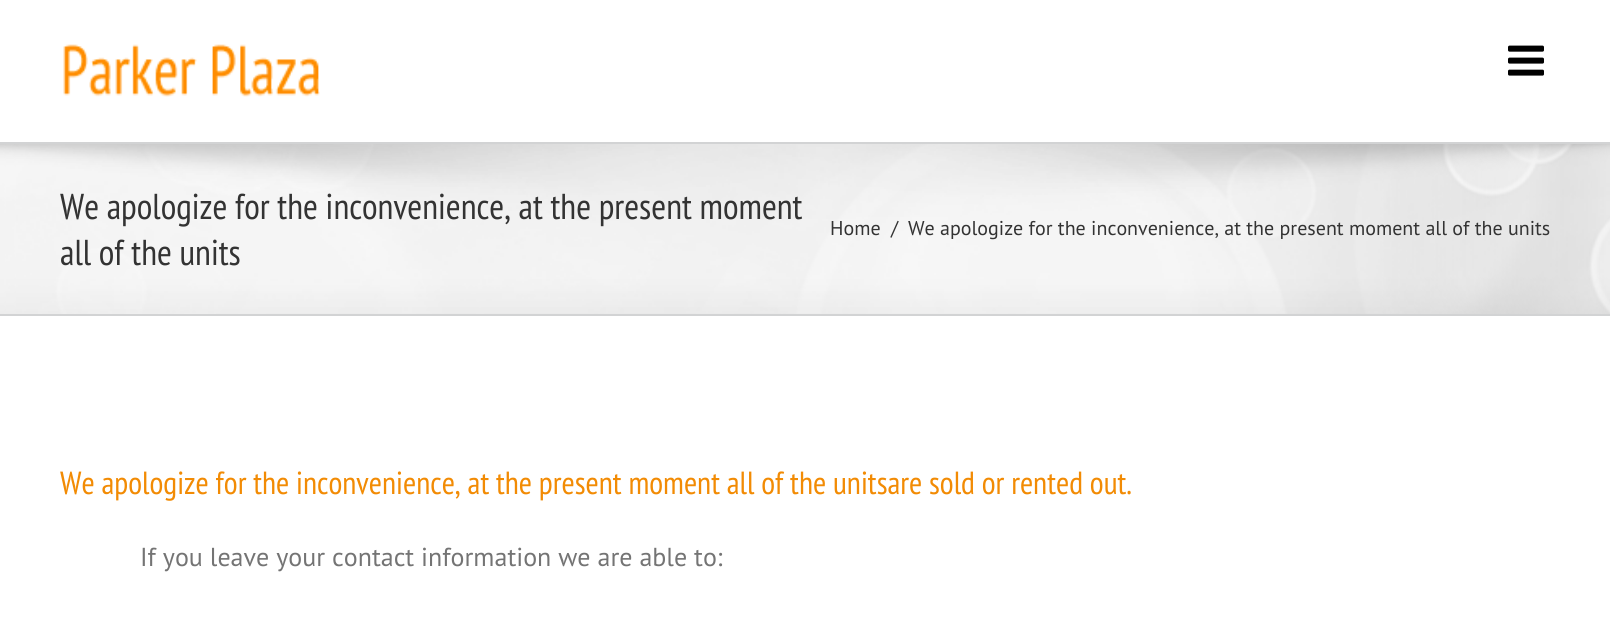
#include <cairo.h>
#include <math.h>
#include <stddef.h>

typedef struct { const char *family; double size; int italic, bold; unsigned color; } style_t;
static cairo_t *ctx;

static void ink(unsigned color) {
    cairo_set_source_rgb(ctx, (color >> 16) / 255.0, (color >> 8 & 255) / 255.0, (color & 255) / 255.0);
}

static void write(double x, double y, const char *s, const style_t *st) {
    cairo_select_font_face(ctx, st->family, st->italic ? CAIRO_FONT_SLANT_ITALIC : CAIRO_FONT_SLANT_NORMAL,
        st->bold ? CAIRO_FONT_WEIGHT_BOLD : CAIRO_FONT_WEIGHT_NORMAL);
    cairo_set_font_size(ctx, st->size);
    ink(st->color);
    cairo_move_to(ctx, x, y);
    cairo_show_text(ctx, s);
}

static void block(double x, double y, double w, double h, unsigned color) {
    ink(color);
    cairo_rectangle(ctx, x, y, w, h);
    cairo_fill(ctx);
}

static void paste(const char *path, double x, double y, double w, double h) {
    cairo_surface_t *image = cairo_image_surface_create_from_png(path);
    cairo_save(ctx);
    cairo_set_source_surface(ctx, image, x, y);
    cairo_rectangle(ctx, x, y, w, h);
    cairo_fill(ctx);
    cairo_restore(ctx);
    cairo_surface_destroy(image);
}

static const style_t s1 = {"PT Sans Narrow", 36, 0, 0, 0x333333};
static const style_t s2 = {"PT Sans", 20, 0, 0, 0x333333};
static const style_t s3 = {"PT Sans Narrow", 32, 0, 0, 0xf28b04};
static const style_t s4 = {"PT Sans", 26, 0, 0, 0x747474};

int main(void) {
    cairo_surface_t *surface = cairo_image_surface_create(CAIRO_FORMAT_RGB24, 1610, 640);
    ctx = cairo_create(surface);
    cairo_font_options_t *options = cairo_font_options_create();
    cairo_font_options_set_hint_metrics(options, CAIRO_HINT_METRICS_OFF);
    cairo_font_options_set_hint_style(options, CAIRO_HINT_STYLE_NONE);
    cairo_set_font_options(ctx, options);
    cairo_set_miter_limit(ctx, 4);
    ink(0xffffff);
    cairo_paint(ctx);
    paste("pic1.png", 63, 44, 257, 53);
    paste("pic2.png", 1508, 45, 36, 31);
    block(0, 144, 1610, 170, 0xf6f6f6);
    paste("pic3.png", 0, 144, 1610, 170);
    block(0, 142, 1610, 2, 0xd2d3d4);
    block(0, 314, 1610, 2, 0xd2d3d4);
    write(60, 219, "We apologize for the inconvenience, at the present moment", &s1);
    write(60, 265, "all of the units", &s1);
    write(830, 235, "Home", &s2);
    write(891, 235, "/", &s2);
    write(908, 235, "We apologize for the inconvenience, at the present moment all of the units", &s2);
    write(60, 494, "We apologize for the inconvenience, at the present moment all of the unitsare sold or rented out.", &s3);
    write(140, 566, "If you leave your contact information we are able to:", &s4);
    cairo_surface_write_to_png(surface, "screenshot.png");
    cairo_font_options_destroy(options);
    cairo_destroy(ctx);
    cairo_surface_destroy(surface);
    return 0;
}
